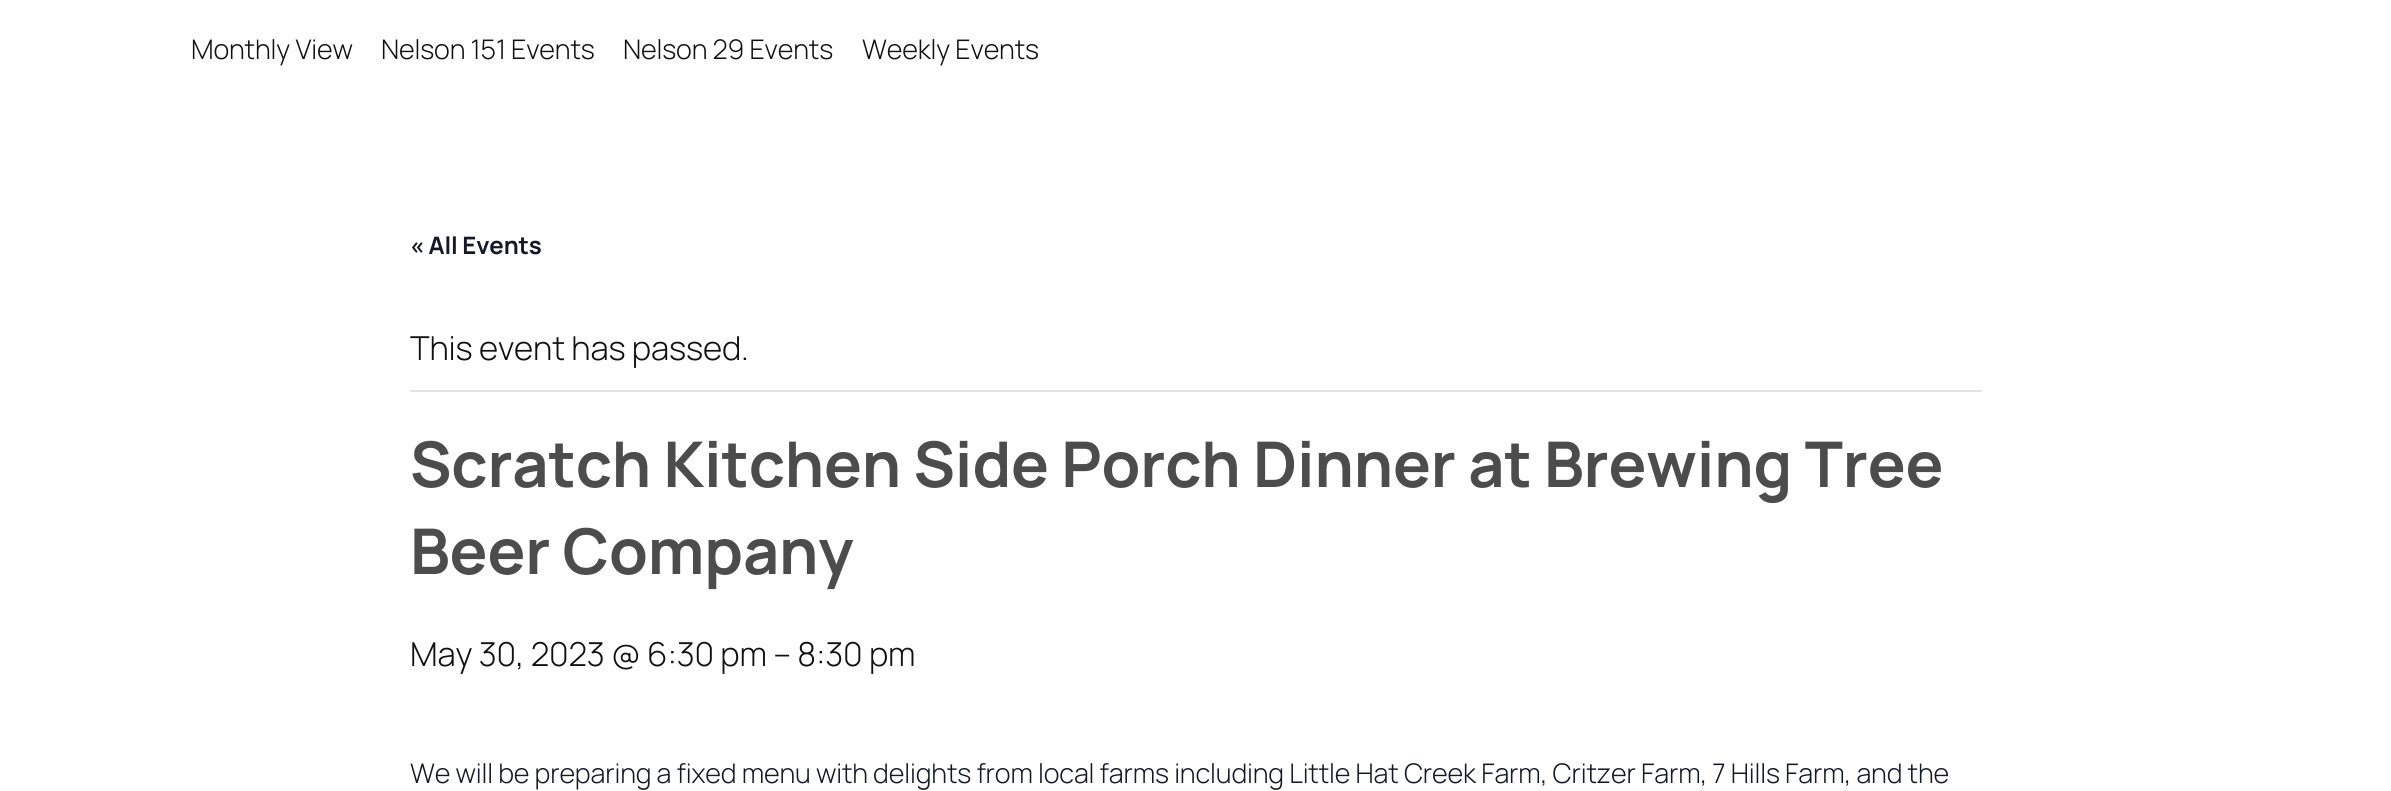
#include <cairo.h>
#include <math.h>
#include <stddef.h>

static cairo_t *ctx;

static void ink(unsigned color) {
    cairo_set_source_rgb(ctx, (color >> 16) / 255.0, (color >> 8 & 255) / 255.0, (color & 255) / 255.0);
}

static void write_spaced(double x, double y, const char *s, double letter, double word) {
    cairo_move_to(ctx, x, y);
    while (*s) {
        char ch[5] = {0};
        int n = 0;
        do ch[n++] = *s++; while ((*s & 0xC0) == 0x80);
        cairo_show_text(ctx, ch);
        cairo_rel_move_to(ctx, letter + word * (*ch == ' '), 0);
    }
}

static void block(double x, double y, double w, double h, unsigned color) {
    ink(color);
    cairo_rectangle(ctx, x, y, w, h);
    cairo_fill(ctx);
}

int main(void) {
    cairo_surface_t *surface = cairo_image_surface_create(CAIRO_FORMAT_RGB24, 2391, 791);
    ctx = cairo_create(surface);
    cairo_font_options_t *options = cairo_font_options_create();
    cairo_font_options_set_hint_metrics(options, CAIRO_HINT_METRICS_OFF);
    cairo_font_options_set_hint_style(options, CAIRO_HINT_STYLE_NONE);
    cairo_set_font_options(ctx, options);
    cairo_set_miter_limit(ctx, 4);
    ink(0xffffff);
    cairo_paint(ctx);
    cairo_select_font_face(ctx, "Manrope Light", CAIRO_FONT_SLANT_NORMAL, CAIRO_FONT_WEIGHT_NORMAL);
    cairo_set_font_size(ctx, 27);
    ink(0x111111);
    write_spaced(191, 59, "Monthly View", -0.15, 0);
    write_spaced(381, 59, "Nelson 151 Events", -0.15, 0);
    write_spaced(623, 59, "Nelson 29 Events", -0.15, 0);
    write_spaced(862, 59, "Weekly Events", -0.15, 0);
    cairo_select_font_face(ctx, "Manrope", CAIRO_FONT_SLANT_NORMAL, CAIRO_FONT_WEIGHT_BOLD);
    cairo_set_font_size(ctx, 24);
    ink(0x141827);
    write_spaced(410, 254, "« All Events", -0.15, 0);
    block(410, 390, 1572, 2, 0xe4e4e4);
    cairo_select_font_face(ctx, "Manrope Light", CAIRO_FONT_SLANT_NORMAL, CAIRO_FONT_WEIGHT_NORMAL);
    cairo_set_font_size(ctx, 33);
    ink(0x111111);
    write_spaced(410, 360, "This event has passed.", -0.15, 0);
    cairo_select_font_face(ctx, "Manrope", CAIRO_FONT_SLANT_NORMAL, CAIRO_FONT_WEIGHT_BOLD);
    cairo_set_font_size(ctx, 63);
    ink(0x4c4c4c);
    write_spaced(410, 487, "Scratch Kitchen Side Porch Dinner at Brewing Tree", -0.15, 0);
    write_spaced(410, 574, "Beer Company", -0.15, 0);
    cairo_select_font_face(ctx, "Manrope Light", CAIRO_FONT_SLANT_NORMAL, CAIRO_FONT_WEIGHT_NORMAL);
    cairo_set_font_size(ctx, 33);
    ink(0x111111);
    write_spaced(410, 666, "May 30, 2023 @ 6:30 pm – 8:30 pm", -0.15, 0);
    cairo_set_font_size(ctx, 27);
    ink(0x141827);
    write_spaced(410, 783, "We will be preparing a fixed menu with delights from local farms including Little Hat Creek Farm, Critzer Farm, 7 Hills Farm, and the", -0.15, 0);
    cairo_surface_write_to_png(surface, "screenshot.png");
    cairo_font_options_destroy(options);
    cairo_destroy(ctx);
    cairo_surface_destroy(surface);
    return 0;
}
